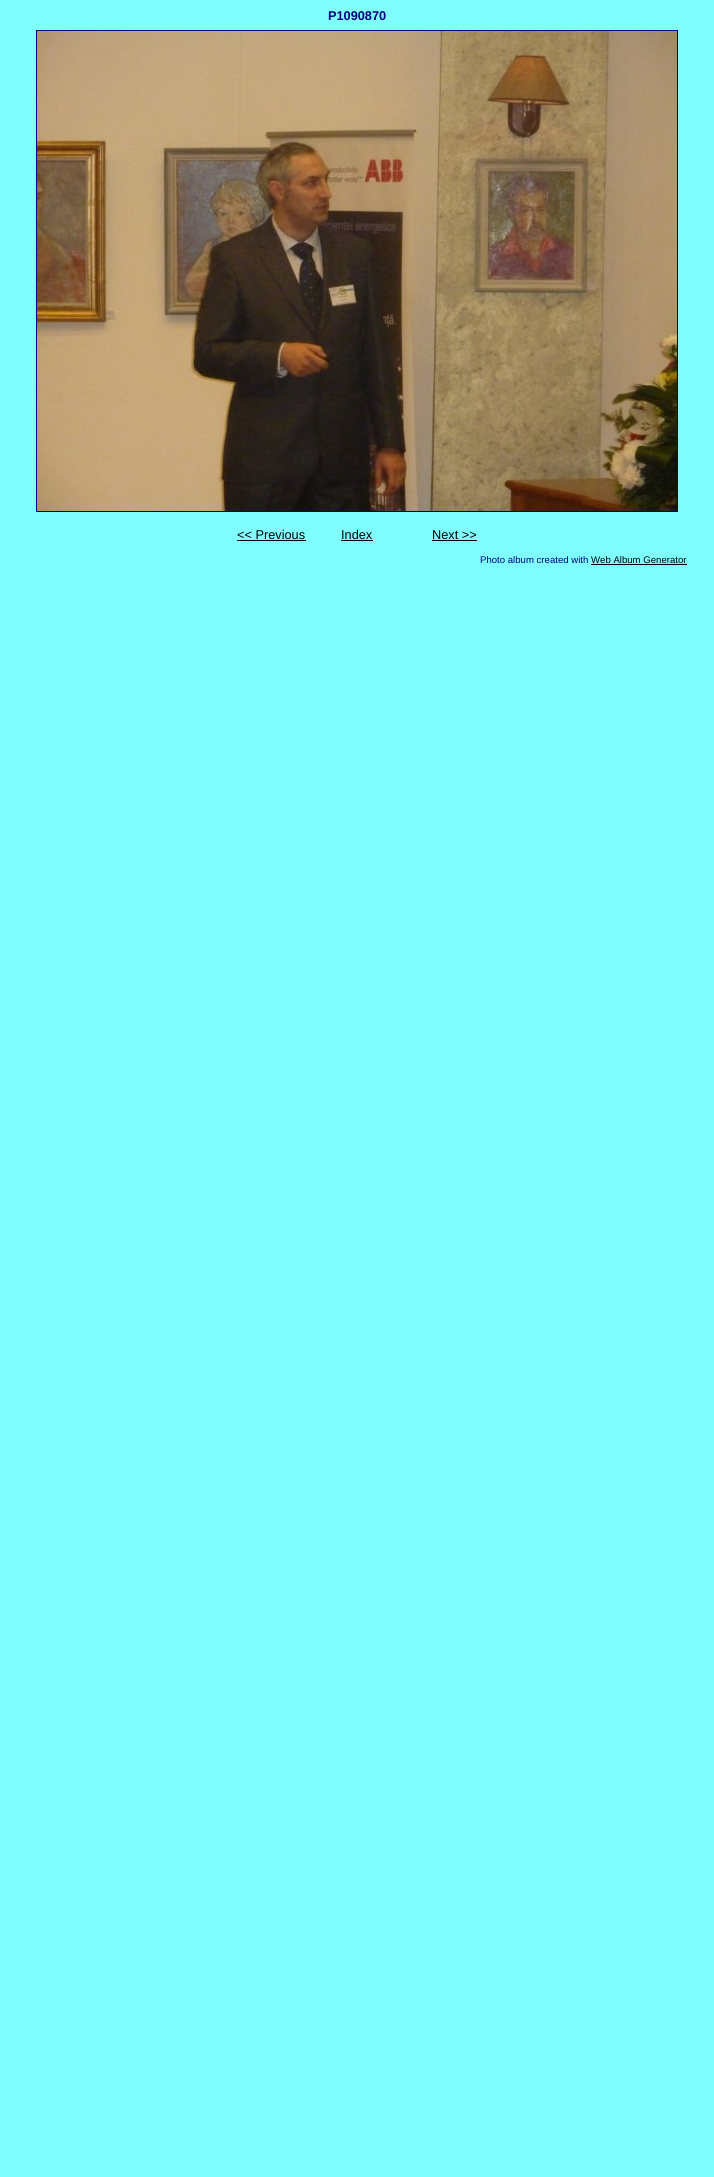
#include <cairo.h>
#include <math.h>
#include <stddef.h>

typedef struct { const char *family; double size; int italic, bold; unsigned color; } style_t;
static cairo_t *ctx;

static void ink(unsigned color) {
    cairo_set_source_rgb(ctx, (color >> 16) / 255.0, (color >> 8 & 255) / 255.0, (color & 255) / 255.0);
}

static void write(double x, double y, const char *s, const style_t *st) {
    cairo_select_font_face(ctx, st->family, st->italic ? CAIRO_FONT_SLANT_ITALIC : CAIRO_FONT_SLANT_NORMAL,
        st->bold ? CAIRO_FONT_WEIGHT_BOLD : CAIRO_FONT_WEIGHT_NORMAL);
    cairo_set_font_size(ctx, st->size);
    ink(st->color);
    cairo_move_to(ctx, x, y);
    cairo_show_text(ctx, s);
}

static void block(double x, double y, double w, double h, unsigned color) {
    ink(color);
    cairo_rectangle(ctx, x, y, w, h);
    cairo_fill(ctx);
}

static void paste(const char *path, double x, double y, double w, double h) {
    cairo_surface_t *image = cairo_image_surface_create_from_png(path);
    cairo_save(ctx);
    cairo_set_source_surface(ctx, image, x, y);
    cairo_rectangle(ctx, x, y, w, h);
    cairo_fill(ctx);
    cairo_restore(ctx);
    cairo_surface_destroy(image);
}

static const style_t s1 = {"Liberation Sans", 12.75, 0, 1, 0x000080};
static const style_t s2 = {"Liberation Sans", 12.75, 0, 0, 0x000000};
static const style_t s3 = {"Liberation Sans", 9.6, 0, 0, 0x000080};
static const style_t s4 = {"Liberation Sans", 9.6, 0, 0, 0x000000};

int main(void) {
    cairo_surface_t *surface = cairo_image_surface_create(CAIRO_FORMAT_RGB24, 714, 2177);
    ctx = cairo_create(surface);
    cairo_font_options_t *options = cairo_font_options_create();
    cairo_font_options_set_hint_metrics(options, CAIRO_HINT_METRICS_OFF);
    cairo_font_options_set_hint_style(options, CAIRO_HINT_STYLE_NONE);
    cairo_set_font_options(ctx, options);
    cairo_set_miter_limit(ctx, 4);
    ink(0x80ffff);
    cairo_paint(ctx);
    write(328, 20, "P1090870", &s1);
    cairo_rectangle(ctx, 36.5, 30.5, 641, 481);
    cairo_set_line_width(ctx, 1);
    cairo_stroke(ctx);
    paste("pic1.png", 37, 31, 640, 480);
    write(237, 539, "<< Previous", &s2);
    block(237, 540, 69, 1, 0x000000);
    write(341, 539, "Index", &s2);
    block(341, 540, 32, 1, 0x000000);
    write(432, 539, "Next >>", &s2);
    block(432, 540, 45, 1, 0x000000);
    write(480, 563, "Photo album created with", &s3);
    write(591, 563, "Web Album Generator", &s4);
    block(591, 564, 96, 1, 0x000000);
    cairo_surface_write_to_png(surface, "screenshot.png");
    cairo_font_options_destroy(options);
    cairo_destroy(ctx);
    cairo_surface_destroy(surface);
    return 0;
}
